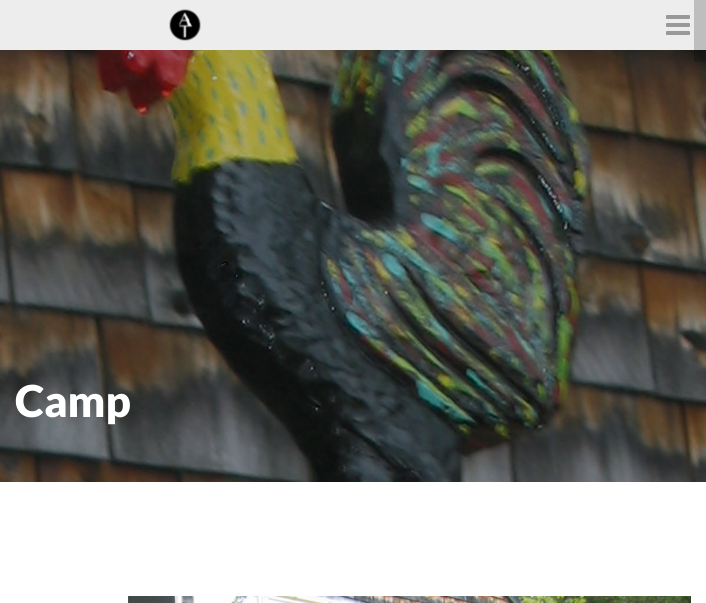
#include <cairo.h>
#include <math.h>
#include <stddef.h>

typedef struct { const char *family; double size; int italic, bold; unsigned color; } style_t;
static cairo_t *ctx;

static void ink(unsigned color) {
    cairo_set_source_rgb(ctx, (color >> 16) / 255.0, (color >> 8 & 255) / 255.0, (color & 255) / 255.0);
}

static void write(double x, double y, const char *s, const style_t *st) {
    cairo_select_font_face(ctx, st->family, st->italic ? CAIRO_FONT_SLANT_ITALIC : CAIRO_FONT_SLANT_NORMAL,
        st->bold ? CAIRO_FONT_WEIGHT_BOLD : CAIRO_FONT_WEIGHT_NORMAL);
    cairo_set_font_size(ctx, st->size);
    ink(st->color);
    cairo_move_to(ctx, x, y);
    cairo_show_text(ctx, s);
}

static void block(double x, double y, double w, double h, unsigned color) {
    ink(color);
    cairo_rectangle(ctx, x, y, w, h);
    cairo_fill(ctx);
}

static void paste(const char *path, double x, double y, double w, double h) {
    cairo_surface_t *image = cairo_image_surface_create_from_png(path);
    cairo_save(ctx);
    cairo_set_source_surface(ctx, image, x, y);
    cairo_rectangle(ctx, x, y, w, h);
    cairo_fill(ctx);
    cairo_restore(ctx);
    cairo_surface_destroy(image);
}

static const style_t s1 = {"Lato Black", 44, 0, 0, 0xffffff};

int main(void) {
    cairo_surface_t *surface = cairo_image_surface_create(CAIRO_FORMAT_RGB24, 706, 603);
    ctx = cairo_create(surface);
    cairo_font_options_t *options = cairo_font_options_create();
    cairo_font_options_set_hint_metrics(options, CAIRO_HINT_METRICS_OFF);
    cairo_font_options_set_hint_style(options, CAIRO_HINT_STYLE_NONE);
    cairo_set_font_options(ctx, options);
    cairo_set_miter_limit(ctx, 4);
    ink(0xffffff);
    cairo_paint(ctx);
    block(0, 0, 706, 50, 0xededed);
    paste("pic1.png", 169, 9, 32, 32);
    paste("pic2.png", 666, 15, 24, 20);
    paste("pic3.png", 0, 50, 706, 432);
    cairo_set_source_rgba(ctx, 0, 0, 0, 0.2);
    cairo_rectangle(ctx, 694, 0, 12, 62);
    cairo_fill(ctx);
    write(15, 417, "Camp", &s1);
    paste("pic4.png", 128, 596, 563, 7);
    cairo_surface_write_to_png(surface, "screenshot.png");
    cairo_font_options_destroy(options);
    cairo_destroy(ctx);
    cairo_surface_destroy(surface);
    return 0;
}
